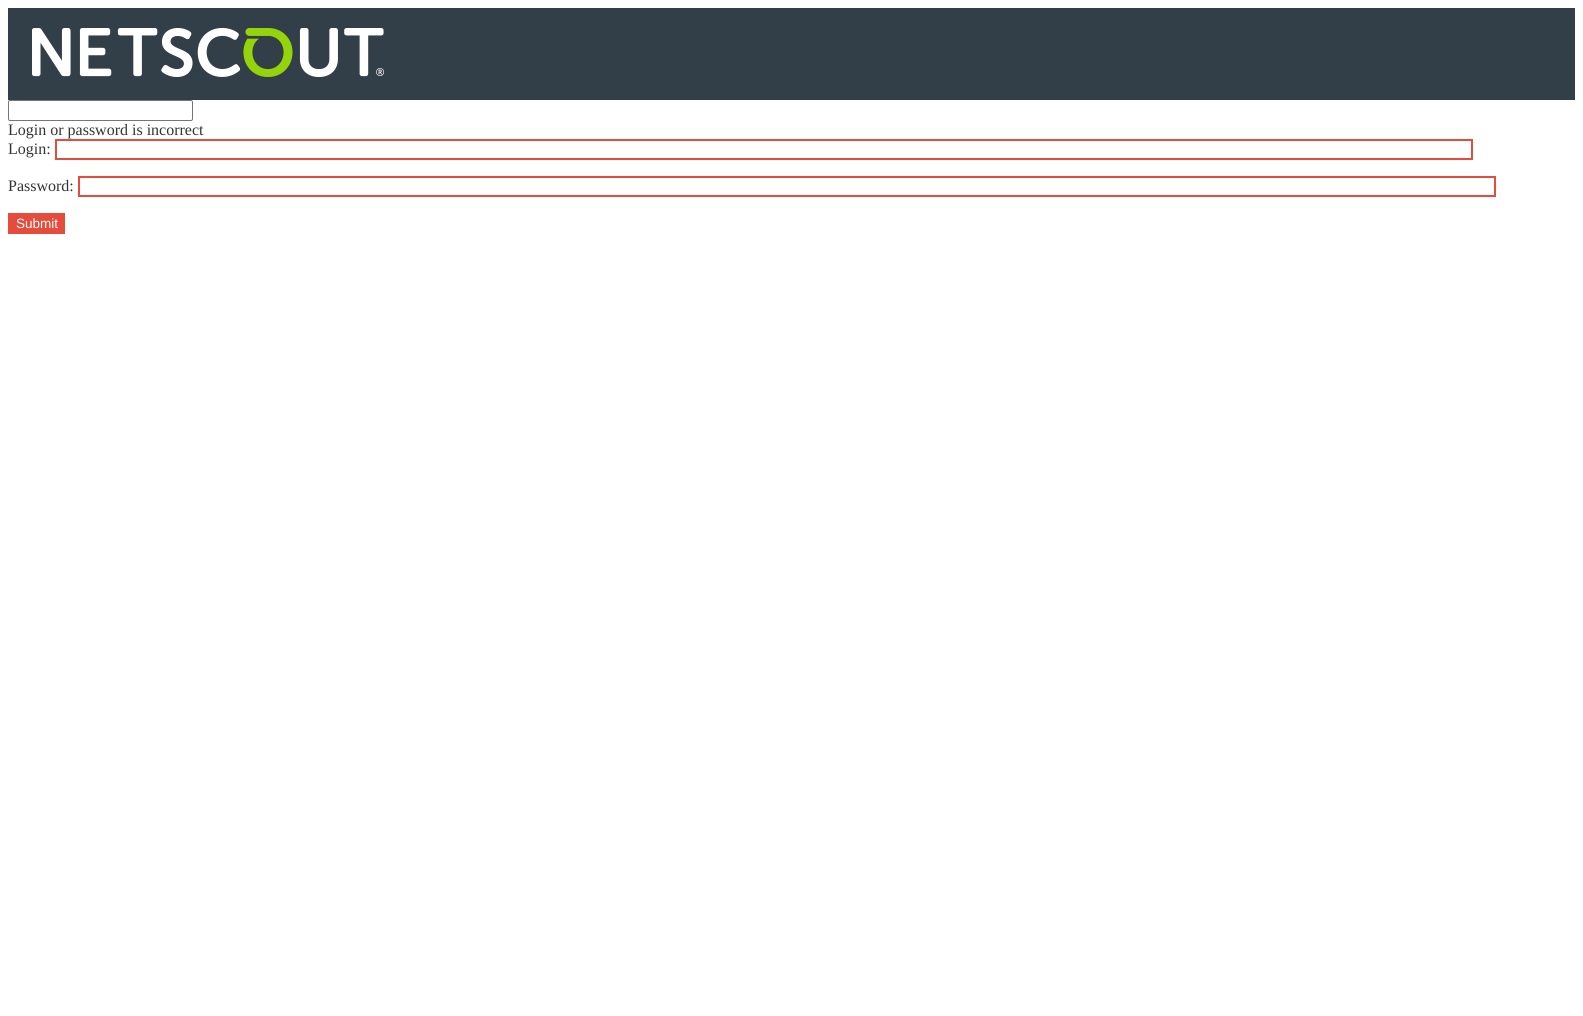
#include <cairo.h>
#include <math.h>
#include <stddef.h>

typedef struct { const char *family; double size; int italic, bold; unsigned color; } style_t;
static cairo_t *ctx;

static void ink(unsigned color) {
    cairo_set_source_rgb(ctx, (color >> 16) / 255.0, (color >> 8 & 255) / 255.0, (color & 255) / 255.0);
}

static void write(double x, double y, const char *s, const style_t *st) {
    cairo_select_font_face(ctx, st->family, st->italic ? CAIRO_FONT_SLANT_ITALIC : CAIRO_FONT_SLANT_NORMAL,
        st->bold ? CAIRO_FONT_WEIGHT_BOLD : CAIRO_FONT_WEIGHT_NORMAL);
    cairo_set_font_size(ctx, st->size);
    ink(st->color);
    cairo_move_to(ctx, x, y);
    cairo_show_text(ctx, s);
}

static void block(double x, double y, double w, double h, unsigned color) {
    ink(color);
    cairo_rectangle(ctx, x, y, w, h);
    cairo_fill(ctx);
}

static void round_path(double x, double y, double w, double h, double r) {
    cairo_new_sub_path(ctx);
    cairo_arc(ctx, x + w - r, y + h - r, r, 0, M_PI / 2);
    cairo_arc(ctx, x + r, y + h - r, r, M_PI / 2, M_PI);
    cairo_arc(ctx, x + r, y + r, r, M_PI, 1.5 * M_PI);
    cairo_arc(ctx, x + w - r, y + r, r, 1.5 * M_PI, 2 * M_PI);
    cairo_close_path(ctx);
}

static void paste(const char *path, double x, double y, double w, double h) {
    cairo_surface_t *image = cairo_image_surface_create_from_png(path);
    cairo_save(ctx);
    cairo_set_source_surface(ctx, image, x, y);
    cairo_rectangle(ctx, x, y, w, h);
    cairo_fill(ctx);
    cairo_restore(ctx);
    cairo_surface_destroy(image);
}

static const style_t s1 = {"Liberation Serif", 16, 0, 0, 0x333333};
static const style_t s2 = {"Liberation Sans", 13.5, 0, 0, 0xffffff};

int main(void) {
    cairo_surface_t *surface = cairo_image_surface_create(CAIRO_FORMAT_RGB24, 1583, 1016);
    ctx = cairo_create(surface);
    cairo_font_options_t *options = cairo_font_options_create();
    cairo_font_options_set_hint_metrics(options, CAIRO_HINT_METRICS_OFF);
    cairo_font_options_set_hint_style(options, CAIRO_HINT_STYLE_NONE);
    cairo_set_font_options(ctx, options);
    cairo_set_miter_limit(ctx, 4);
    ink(0xffffff);
    cairo_paint(ctx);
    block(8, 8, 1567, 92, 0x323e48);
    paste("pic1.png", 32, 28, 352, 49);
    round_path(8.5, 100.5, 184, 20, 1.5);
    ink(0x767676);
    cairo_set_line_width(ctx, 1);
    cairo_stroke(ctx);
    write(8, 135, "Login or password is incorrect", &s1);
    write(8, 154, "Login:", &s1);
    cairo_rectangle(ctx, 56, 140, 1416, 19);
    ink(0xe64c3c);
    cairo_set_line_width(ctx, 2);
    cairo_stroke(ctx);
    write(8, 191, "Password:", &s1);
    cairo_rectangle(ctx, 79, 177, 1416, 19);
    ink(0xe64c3c);
    cairo_stroke(ctx);
    block(8, 213, 57, 21, 0xe64c3c);
    write(16, 228, "Submit", &s2);
    cairo_surface_write_to_png(surface, "screenshot.png");
    cairo_font_options_destroy(options);
    cairo_destroy(ctx);
    cairo_surface_destroy(surface);
    return 0;
}
